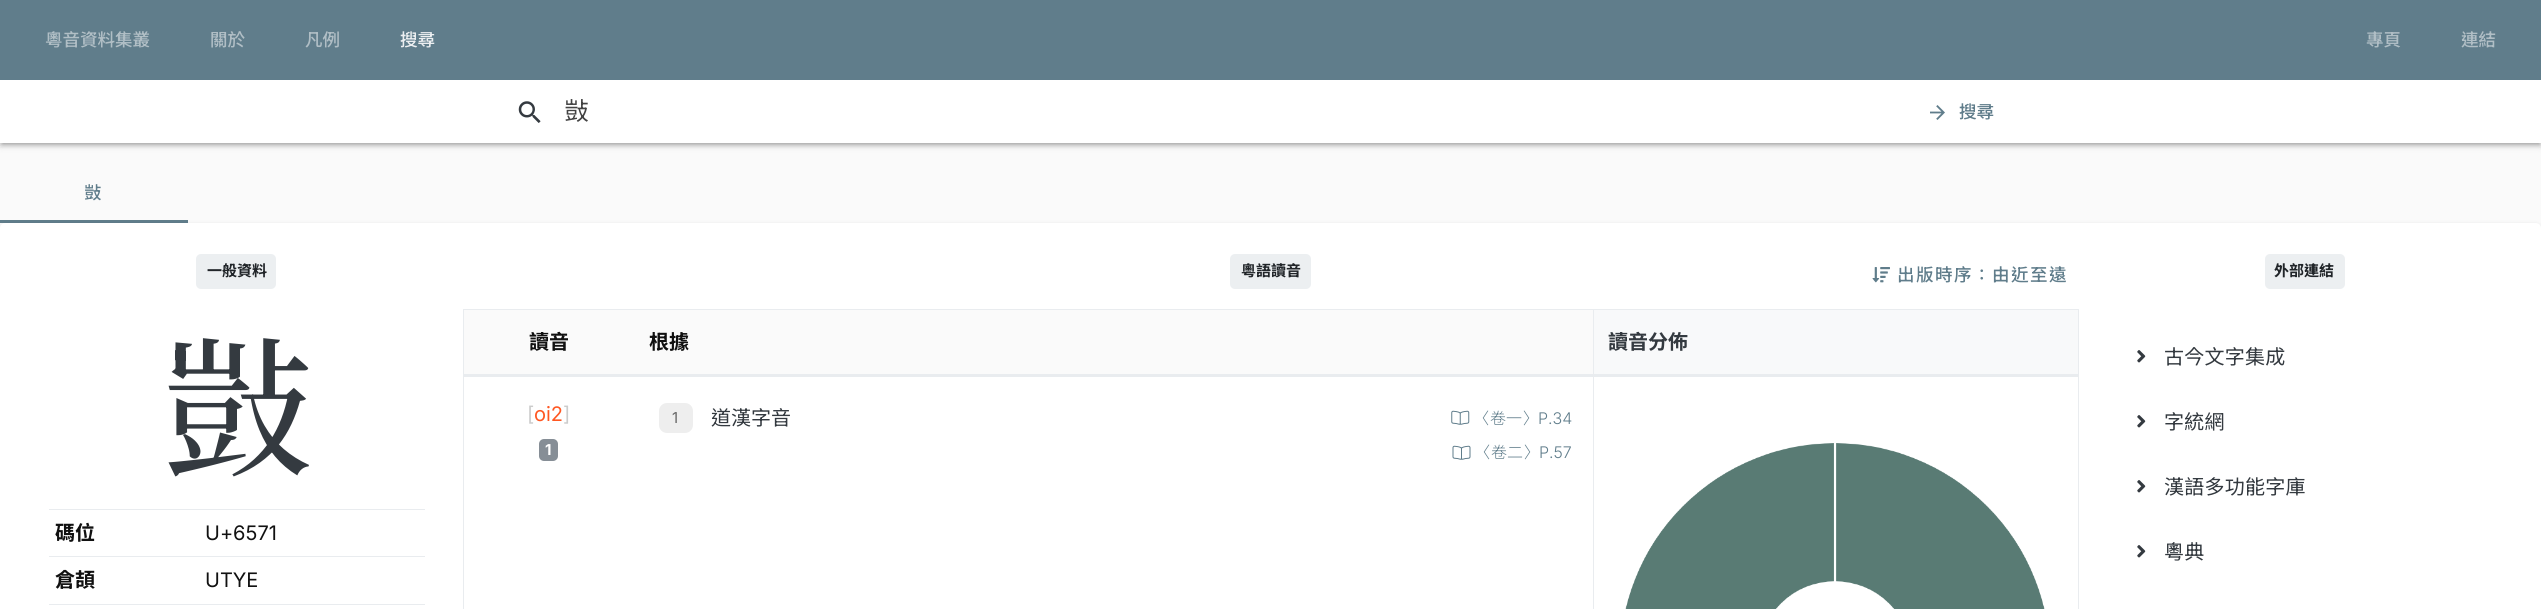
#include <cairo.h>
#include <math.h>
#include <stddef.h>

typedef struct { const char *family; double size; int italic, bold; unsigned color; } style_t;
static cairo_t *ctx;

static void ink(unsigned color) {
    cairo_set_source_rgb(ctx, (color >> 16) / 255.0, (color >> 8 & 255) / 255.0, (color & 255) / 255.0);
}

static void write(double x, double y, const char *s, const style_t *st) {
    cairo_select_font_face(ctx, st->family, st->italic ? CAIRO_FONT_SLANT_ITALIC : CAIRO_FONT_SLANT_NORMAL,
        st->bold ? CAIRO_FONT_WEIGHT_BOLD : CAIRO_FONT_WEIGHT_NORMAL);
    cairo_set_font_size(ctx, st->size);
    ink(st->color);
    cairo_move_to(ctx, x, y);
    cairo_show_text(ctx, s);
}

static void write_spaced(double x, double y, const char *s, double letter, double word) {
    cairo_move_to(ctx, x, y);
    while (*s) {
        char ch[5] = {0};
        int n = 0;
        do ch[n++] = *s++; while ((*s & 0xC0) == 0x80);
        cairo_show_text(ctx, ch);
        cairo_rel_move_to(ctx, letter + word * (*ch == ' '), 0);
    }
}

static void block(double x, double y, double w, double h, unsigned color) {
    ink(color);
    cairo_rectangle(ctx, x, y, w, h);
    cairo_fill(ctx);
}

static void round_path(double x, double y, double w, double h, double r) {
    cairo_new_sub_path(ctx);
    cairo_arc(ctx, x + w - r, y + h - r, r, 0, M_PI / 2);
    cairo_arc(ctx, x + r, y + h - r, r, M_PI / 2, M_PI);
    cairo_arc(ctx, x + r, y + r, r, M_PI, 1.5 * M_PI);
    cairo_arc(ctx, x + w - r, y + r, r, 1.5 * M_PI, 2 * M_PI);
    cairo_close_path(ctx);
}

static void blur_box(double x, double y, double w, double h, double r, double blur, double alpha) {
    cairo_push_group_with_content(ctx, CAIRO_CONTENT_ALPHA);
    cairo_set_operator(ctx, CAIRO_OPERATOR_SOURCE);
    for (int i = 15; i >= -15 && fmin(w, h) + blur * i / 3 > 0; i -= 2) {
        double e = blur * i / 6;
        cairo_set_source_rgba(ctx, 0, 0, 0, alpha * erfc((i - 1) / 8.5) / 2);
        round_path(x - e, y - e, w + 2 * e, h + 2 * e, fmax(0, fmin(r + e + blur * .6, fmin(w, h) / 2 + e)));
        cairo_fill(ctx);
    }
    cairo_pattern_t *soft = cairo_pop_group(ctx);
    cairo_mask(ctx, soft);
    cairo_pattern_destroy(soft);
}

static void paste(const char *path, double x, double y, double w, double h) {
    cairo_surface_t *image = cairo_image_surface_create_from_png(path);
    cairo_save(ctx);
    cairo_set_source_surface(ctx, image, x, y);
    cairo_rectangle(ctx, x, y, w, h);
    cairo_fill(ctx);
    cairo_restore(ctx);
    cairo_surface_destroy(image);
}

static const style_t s1 = {"Chiron Hei HK Medium", 17.5, 0, 0, 0xb0bec5};
static const style_t s2 = {"Chiron Hei HK Medium", 17.5, 0, 0, 0xeceff1};
static const style_t s3 = {"Chiron Hei HK", 25, 0, 0, 0x434343};
static const style_t s4 = {"Chiron Hei HK Medium", 17.5, 0, 0, 0x607d8b};
static const style_t s5 = {"Chiron Hei HK", 15, 0, 1, 0x212529};
static const style_t s6 = {"Chiron Sung HK Medium", 150, 0, 0, 0x343a40};
static const style_t s7 = {"Chiron Hei HK", 20, 0, 1, 0x111111};
static const style_t s8 = {"Inter", 20, 0, 0, 0x111111};
static const style_t s9 = {"Inter", 20, 0, 0, 0xcccccc};
static const style_t s10 = {"Inter", 20, 0, 0, 0xff5722};
static const style_t s11 = {"Inter", 15, 0, 1, 0xffffff};
static const style_t s12 = {"Inter", 15, 0, 0, 0x666666};
static const style_t s13 = {"Chiron Hei HK", 20, 0, 0, 0x343a40};
static const style_t s14 = {"Chiron Hei HK Light", 16, 0, 0, 0x607d8b};
static const style_t s15 = {"Inter Light", 16, 0, 0, 0x607d8b};
static const style_t s16 = {"Chiron Hei HK", 20, 0, 1, 0x343a40};

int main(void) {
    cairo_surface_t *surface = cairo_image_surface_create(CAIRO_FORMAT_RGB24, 2541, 609);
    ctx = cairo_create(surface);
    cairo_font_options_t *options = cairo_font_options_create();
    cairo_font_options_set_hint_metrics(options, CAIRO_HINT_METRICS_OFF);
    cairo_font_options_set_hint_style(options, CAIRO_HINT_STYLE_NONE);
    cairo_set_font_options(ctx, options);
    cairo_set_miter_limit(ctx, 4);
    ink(0xfafafa);
    cairo_paint(ctx);
    ink(0x000000);
    blur_box(0, 81, 2541, 63, 0, 5, 0.12);
    blur_box(0, 84, 2541, 62, 0, 2.5, 0.14);
    blur_box(3, 86, 2536, 58, 0, 2, 0.2);
    block(0, 0, 2541, 80, 0x607d8b);
    write(45, 46, "粵音資料集叢", &s1);
    write(210, 46, "關於", &s1);
    write(305, 46, "凡例", &s1);
    write(400, 46, "搜尋", &s2);
    write(2366, 46, "專頁", &s1);
    write(2461, 46, "連結", &s1);
    block(0, 80, 2541, 63, 0xffffff);
    paste("pic1.png", 518, 101, 23, 22);
    write(564, 120, "敱", &s3);
    paste("pic2.png", 1930, 105, 15, 15);
    write(1959, 118, "搜尋", &s4);
    write_spaced(84, 199, "敱", 1.5, 0);
    block(0, 220, 188, 3, 0x607d8b);
    ink(0x000000);
    blur_box(0, 224, 2541, 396, 5, 2, 0.12);
    ink(0xffffff);
    round_path(0, 223, 2541, 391, 5);
    cairo_fill(ctx);
    ink(0xeceff1);
    round_path(196, 254, 80, 35, 5);
    cairo_fill(ctx);
    write(207, 276, "一般資料", &s5);
    write(162, 464, "敱", &s6);
    write(55, 540, "碼位", &s7);
    block(49, 509, 376, 1, 0xe9ecef);
    write(205, 540, "U+6571", &s8);
    write(55, 587, "倉頡", &s7);
    block(49, 556, 376, 1, 0xe9ecef);
    write(205, 587, "UTYE", &s8);
    block(49, 604, 376, 1, 0xe9ecef);
    ink(0xeceff1);
    round_path(1230, 254, 81, 35, 5);
    cairo_fill(ctx);
    write(1241, 276, "粵語讀音", &s5);
    paste("pic3.png", 1872, 267, 18, 16);
    cairo_select_font_face(ctx, "Chiron Hei HK Medium", CAIRO_FONT_SLANT_NORMAL, CAIRO_FONT_WEIGHT_NORMAL);
    cairo_set_font_size(ctx, 17.5);
    ink(0x607d8b);
    write_spaced(1897, 281, "出版時序：由近至遠", 1.5, 0);
    cairo_rectangle(ctx, 463.5, 309.5, 1615, 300);
    ink(0xe9ecef);
    cairo_set_line_width(ctx, 1);
    cairo_stroke(ctx);
    block(1593, 310, 1, 299, 0xe9ecef);
    block(464, 310, 1129, 64, 0xfafafa);
    write(529, 349, "讀音", &s7);
    block(463, 374, 1615, 3, 0xe9ecef);
    write(649, 349, "根據", &s7);
    write(527, 421, "[", &s9);
    write(534, 421, "oi2", &s10);
    write(563, 421, "]", &s9);
    ink(0x868e96);
    round_path(539, 439, 19, 22, 5);
    cairo_fill(ctx);
    write(545, 455, "1", &s11);
    ink(0xeeeeee);
    round_path(659, 403, 34, 30, 8);
    cairo_fill(ctx);
    write(672, 423, "1", &s12);
    write(711, 425, "道漢字音", &s13);
    paste("pic4.png", 1451, 410, 19, 15);
    write(1474, 424, "〈卷一〉", &s14);
    write(1538, 424, "P.34", &s15);
    paste("pic5.png", 1452, 445, 19, 15);
    write(1475, 458, "〈卷二〉", &s14);
    write(1539, 458, "P.57", &s15);
    block(1594, 310, 484, 64, 0xf8f9fa);
    write(1608, 349, "讀音分佈", &s16);
    paste("pic6.png", 1625, 443, 420, 166);
    ink(0xeceff1);
    round_path(2265, 254, 80, 35, 5);
    cairo_fill(ctx);
    write(2274, 276, "外部連結", &s5);
    paste("pic7.png", 2137, 350, 9, 13);
    cairo_select_font_face(ctx, "Chiron Hei HK", CAIRO_FONT_SLANT_NORMAL, CAIRO_FONT_WEIGHT_NORMAL);
    cairo_set_font_size(ctx, 20);
    ink(0x343a40);
    write_spaced(2164, 364, "古今文字集成", 0.25, 0);
    paste("pic7.png", 2137, 415, 9, 13);
    write_spaced(2164, 429, "字統網", 0.25, 0);
    paste("pic7.png", 2137, 480, 9, 13);
    write_spaced(2164, 494, "漢語多功能字庫", 0.25, 0);
    paste("pic7.png", 2137, 545, 9, 13);
    write_spaced(2164, 559, "粵典", 0.25, 0);
    cairo_surface_write_to_png(surface, "screenshot.png");
    cairo_font_options_destroy(options);
    cairo_destroy(ctx);
    cairo_surface_destroy(surface);
    return 0;
}
